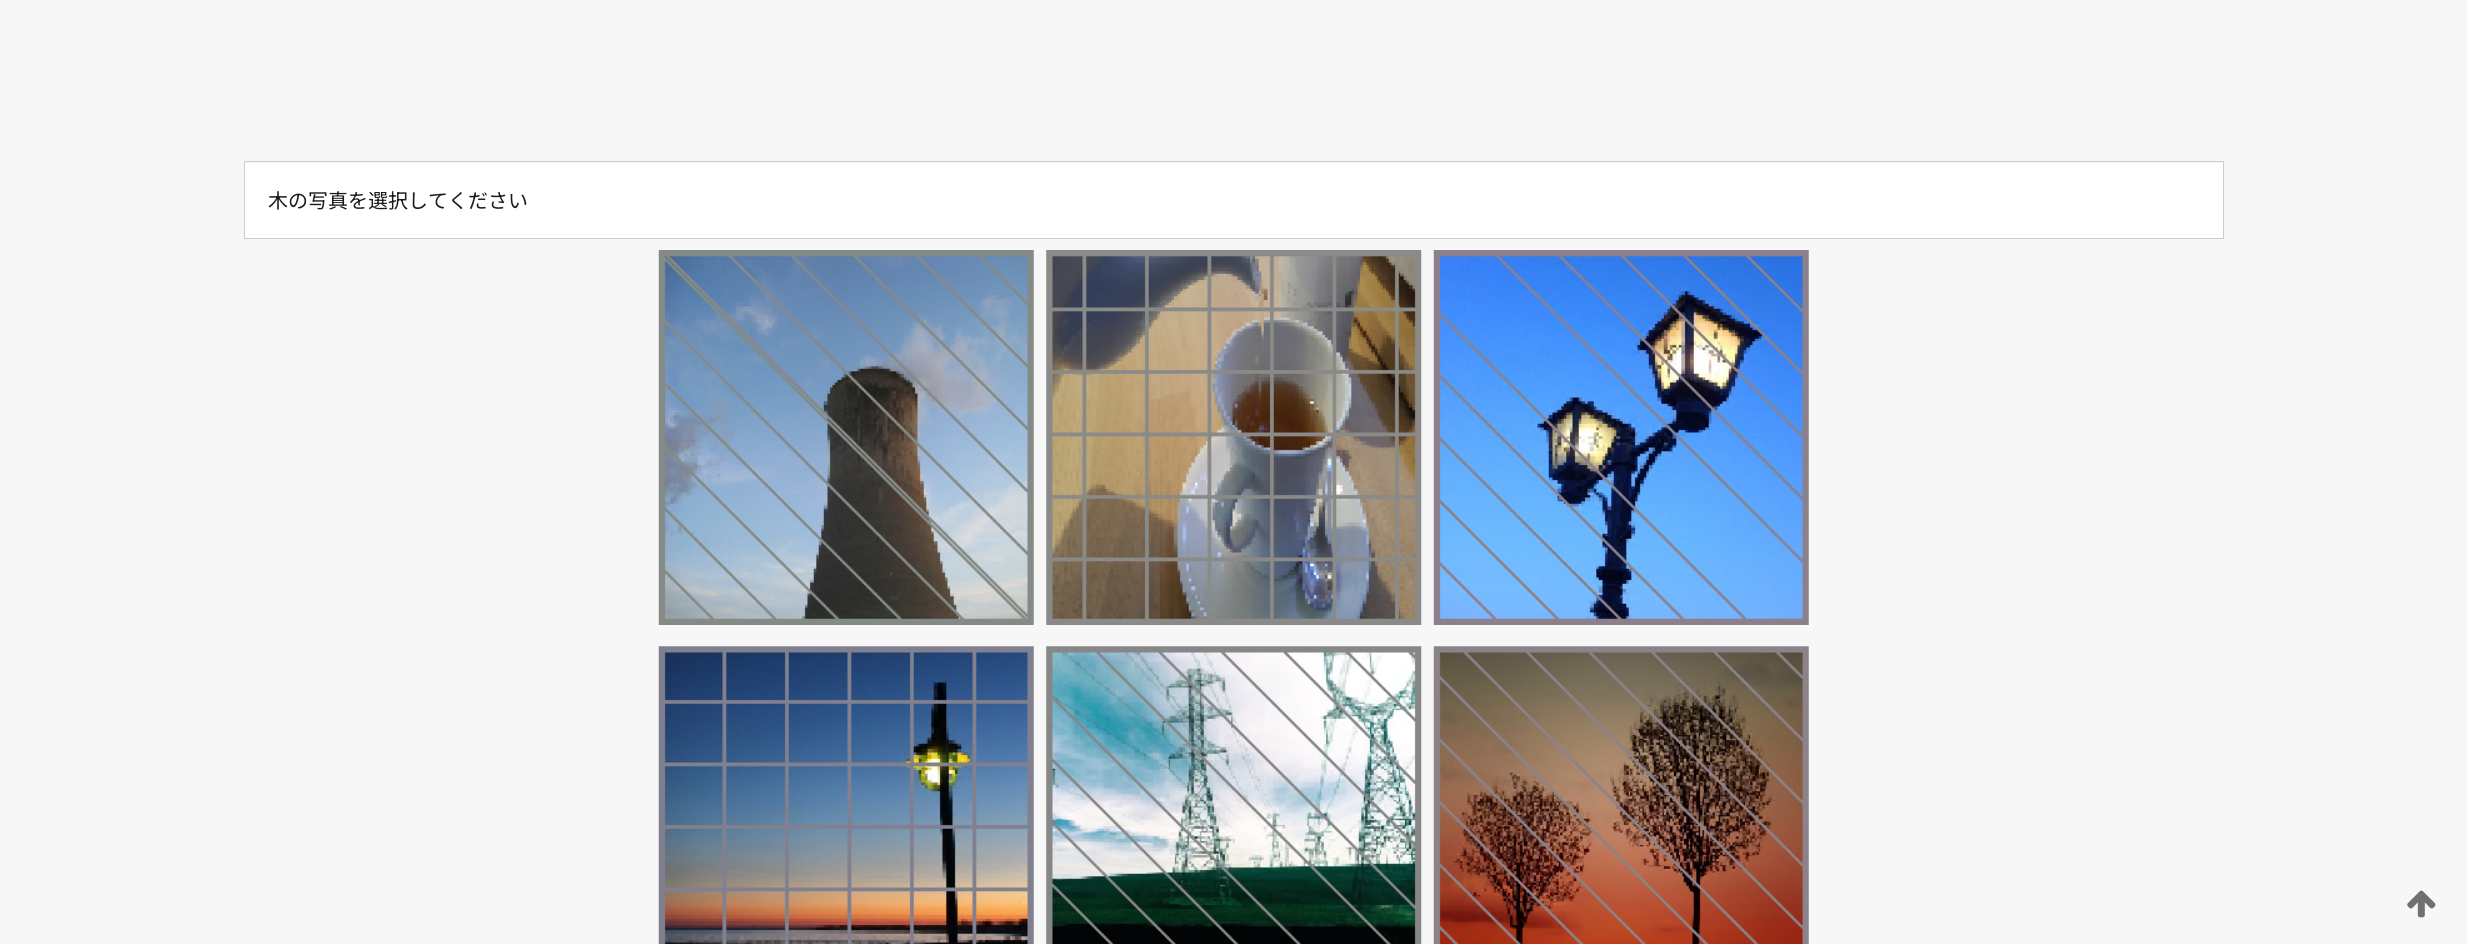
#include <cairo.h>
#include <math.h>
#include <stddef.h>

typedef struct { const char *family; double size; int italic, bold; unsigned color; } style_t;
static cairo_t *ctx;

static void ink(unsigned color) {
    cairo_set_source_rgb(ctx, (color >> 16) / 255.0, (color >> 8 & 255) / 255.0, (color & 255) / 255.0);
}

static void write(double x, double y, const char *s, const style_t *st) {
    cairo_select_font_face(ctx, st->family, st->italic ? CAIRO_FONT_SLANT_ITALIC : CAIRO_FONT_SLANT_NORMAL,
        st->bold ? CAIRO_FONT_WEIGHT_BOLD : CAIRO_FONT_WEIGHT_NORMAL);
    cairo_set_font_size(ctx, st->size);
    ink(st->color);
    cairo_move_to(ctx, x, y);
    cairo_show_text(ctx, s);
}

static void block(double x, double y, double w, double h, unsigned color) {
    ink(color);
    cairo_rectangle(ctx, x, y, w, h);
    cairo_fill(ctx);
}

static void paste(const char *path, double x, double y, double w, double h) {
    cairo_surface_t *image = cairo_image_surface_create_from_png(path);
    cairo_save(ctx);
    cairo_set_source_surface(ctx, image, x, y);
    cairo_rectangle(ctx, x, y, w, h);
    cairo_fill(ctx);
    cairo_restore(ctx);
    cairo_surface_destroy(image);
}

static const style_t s1 = {"Noto Sans SC Thin", 20, 0, 0, 0x1a1a1a};

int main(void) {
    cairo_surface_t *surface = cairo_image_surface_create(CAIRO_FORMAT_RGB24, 2467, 944);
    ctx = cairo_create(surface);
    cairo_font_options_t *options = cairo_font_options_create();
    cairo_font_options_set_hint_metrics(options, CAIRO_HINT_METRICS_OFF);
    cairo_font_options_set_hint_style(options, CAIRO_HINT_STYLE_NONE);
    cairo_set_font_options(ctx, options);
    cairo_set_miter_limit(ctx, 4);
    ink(0xf7f7f7);
    cairo_paint(ctx);
    block(245, 163, 1978, 75, 0xffffff);
    cairo_rectangle(ctx, 244.5, 161.5, 1979, 77);
    ink(0xcccccc);
    cairo_set_line_width(ctx, 1);
    cairo_stroke(ctx);
    write(268, 208, "木の写真を選択してください", &s1);
    paste("pic1.png", 658, 250, 376, 375);
    paste("pic2.png", 1046, 250, 376, 375);
    paste("pic3.png", 1433, 250, 376, 375);
    paste("pic4.png", 658, 646, 376, 298);
    paste("pic5.png", 1046, 646, 376, 298);
    paste("pic6.png", 1433, 646, 376, 298);
    paste("pic7.png", 2407, 890, 29, 28);
    cairo_surface_write_to_png(surface, "screenshot.png");
    cairo_font_options_destroy(options);
    cairo_destroy(ctx);
    cairo_surface_destroy(surface);
    return 0;
}
